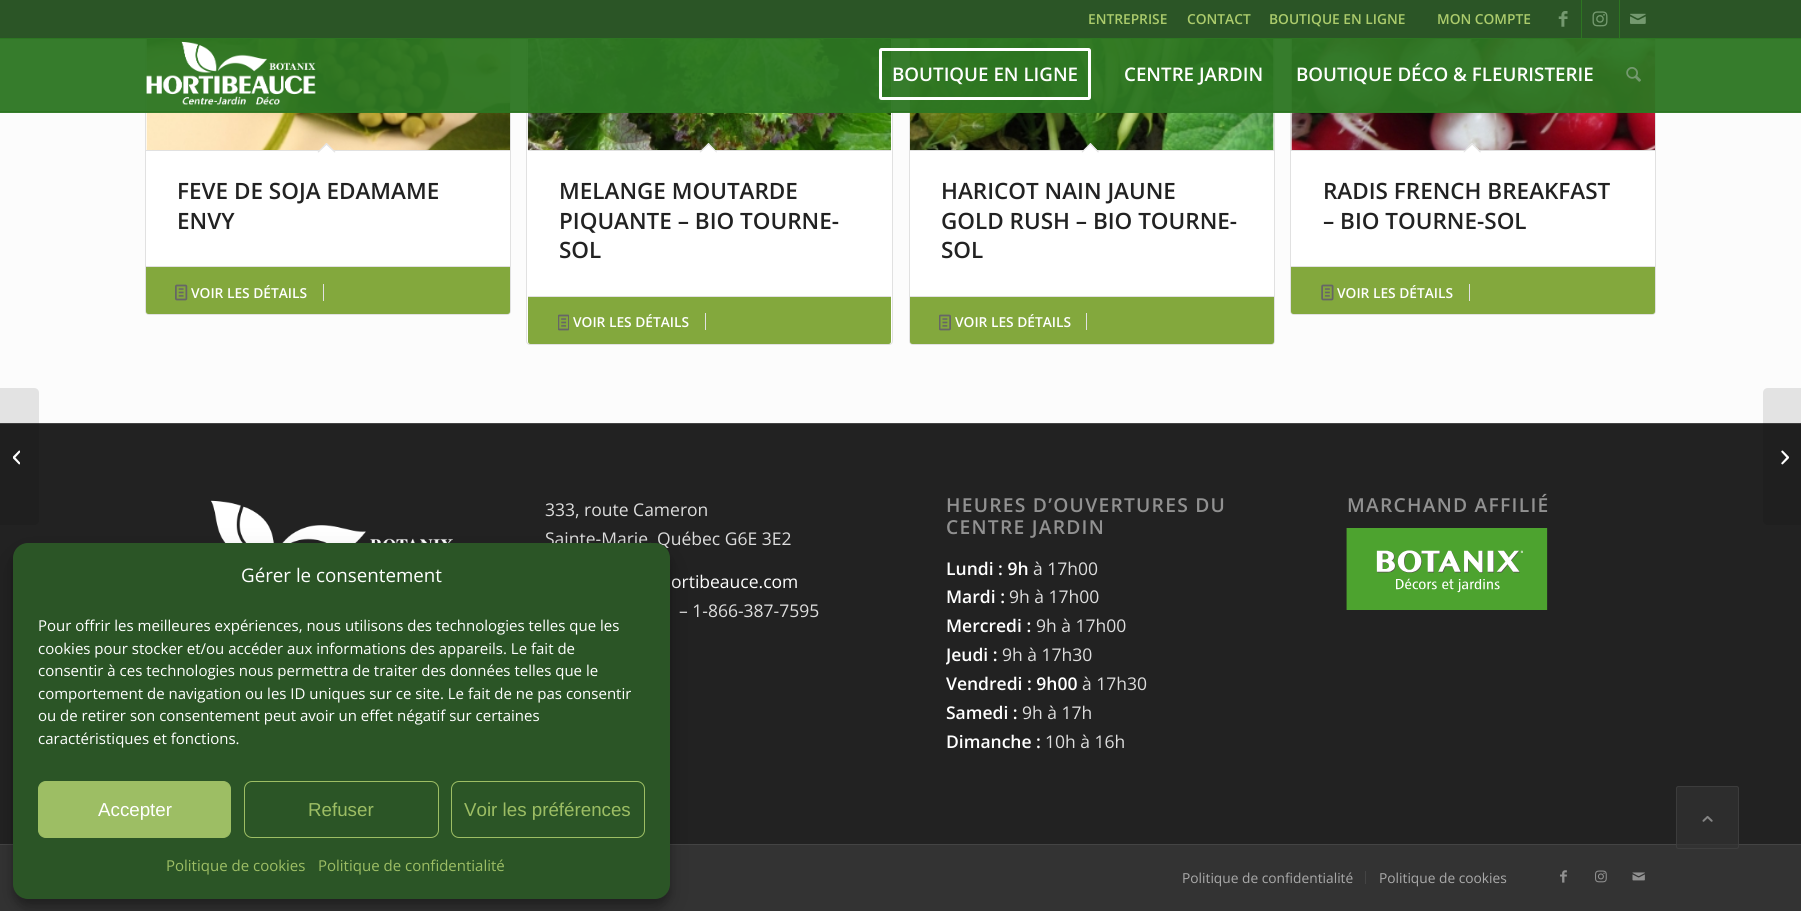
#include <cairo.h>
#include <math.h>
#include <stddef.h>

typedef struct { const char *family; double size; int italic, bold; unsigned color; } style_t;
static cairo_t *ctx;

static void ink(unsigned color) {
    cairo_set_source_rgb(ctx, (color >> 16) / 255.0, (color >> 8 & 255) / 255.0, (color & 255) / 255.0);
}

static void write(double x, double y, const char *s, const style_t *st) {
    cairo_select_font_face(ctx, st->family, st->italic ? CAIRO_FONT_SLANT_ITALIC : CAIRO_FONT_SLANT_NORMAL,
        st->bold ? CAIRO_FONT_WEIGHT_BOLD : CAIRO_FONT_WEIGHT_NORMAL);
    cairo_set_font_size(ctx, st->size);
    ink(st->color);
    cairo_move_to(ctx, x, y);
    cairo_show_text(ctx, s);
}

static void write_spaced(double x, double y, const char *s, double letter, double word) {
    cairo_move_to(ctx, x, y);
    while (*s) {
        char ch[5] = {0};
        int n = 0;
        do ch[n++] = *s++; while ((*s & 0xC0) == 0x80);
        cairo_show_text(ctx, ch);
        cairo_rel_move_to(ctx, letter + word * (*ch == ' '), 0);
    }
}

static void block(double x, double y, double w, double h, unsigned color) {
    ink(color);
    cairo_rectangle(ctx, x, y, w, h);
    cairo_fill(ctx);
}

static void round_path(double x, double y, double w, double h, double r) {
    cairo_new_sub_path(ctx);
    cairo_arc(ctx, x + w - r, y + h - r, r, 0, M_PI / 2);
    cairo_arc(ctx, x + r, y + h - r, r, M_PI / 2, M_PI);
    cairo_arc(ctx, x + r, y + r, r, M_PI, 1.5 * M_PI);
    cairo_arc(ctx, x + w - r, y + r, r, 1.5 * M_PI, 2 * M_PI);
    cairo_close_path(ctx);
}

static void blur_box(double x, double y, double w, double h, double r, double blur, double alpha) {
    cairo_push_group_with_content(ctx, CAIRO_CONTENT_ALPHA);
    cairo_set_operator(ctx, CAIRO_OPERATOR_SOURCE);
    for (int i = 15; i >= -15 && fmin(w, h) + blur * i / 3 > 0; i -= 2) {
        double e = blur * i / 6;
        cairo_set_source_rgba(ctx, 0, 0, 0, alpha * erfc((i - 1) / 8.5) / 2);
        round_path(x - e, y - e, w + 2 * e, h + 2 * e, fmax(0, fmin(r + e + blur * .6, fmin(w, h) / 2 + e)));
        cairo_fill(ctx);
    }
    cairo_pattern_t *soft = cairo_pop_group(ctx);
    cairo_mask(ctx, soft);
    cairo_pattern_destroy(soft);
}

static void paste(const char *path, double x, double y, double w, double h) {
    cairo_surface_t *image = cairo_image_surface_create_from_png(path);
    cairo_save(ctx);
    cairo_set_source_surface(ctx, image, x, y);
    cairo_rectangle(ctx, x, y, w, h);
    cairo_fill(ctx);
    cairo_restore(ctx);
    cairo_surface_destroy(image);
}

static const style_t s1 = {"Open Sans SemiBold", 13.75, 0, 0, 0xaccc6c};
static const style_t s2 = {"Open Sans SemiBold", 18.75, 0, 0, 0xffffff};
static const style_t s3 = {"Open Sans SemiBold", 22.5, 0, 0, 0x222222};
static const style_t s4 = {"Open Sans SemiBold", 13.75, 0, 0, 0xffffff};
static const style_t s5 = {"Open Sans", 17.5, 0, 0, 0xdddddd};
static const style_t s6 = {"Open Sans", 17.5, 0, 0, 0xffffff};
static const style_t s7 = {"Open Sans SemiBold", 17.5, 0, 0, 0xffffff};
static const style_t s8 = {"Open Sans", 13.75, 0, 0, 0xaaaaaa};
static const style_t s9 = {"Open Sans", 18.75, 0, 0, 0xffffff};
static const style_t s10 = {"Open Sans", 15, 0, 0, 0xffffff};
static const style_t s11 = {"Liberation Sans", 18.75, 0, 0, 0xffffff};
static const style_t s12 = {"Liberation Sans", 18.75, 0, 0, 0x9dbe64};
static const style_t s13 = {"Open Sans", 15, 0, 0, 0x9dbe64};

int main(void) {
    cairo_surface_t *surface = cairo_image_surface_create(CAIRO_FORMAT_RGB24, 1801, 911);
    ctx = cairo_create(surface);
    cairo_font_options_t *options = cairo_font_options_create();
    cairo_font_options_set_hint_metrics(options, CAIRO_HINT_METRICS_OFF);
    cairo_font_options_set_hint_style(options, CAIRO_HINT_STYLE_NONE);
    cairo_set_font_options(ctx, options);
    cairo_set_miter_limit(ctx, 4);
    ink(0xfcfcfc);
    cairo_paint(ctx);
    ink(0xffffff);
    round_path(145.5, -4.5, 365, 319, 3.5);
    cairo_fill_preserve(ctx);
    ink(0xe1e1e1);
    cairo_set_line_width(ctx, 1);
    cairo_stroke(ctx);
    ink(0xffffff);
    round_path(526.5, -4.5, 366, 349, 3.5);
    cairo_fill_preserve(ctx);
    ink(0xe1e1e1);
    cairo_stroke(ctx);
    ink(0xffffff);
    round_path(909.5, -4.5, 365, 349, 3.5);
    cairo_fill_preserve(ctx);
    ink(0xe1e1e1);
    cairo_stroke(ctx);
    ink(0xffffff);
    round_path(1290.5, -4.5, 365, 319, 3.5);
    cairo_fill_preserve(ctx);
    ink(0xe1e1e1);
    cairo_stroke(ctx);
    block(0, 0, 1801, 38, 0x2b5526);
    block(0, 38, 1801, 1, 0x2d7622);
    write(1088, 24, "ENTREPRISE", &s1);
    write(1187, 24, "CONTACT", &s1);
    write(1269, 24, "BOUTIQUE EN LIGNE", &s1);
    write(1437, 24, "MON COMPTE", &s1);
    block(1581, 0, 1, 38, 0x2d7622);
    paste("pic1.png", 1558, 11, 10, 16);
    block(1619, 0, 1, 38, 0x2d7622);
    paste("pic2.png", 1592, 11, 16, 16);
    paste("pic3.png", 1630, 13, 16, 11);
    paste("pic7.png", 146, 39, 364, 111);
    paste("pic9.png", 527, 39, 364, 111);
    paste("pic11.png", 910, 39, 364, 111);
    paste("pic13.png", 1291, 39, 364, 111);
    cairo_set_source_rgba(ctx, 0.176, 0.463, 0.133, 0.95);
    cairo_rectangle(ctx, 0, 39, 1801, 74);
    cairo_fill(ctx);
    block(0, 111, 1801, 1, 0x2d7622);
    paste("pic4.png", 146, 41, 170, 64);
    round_path(880.5, 49.5, 209, 49, 1);
    ink(0xffffff);
    cairo_set_line_width(ctx, 3);
    cairo_stroke(ctx);
    write(892, 81, "BOUTIQUE EN LIGNE", &s2);
    write(1124, 81, "CENTRE JARDIN", &s2);
    write(1296, 81, "BOUTIQUE DÉCO & FLEURISTERIE", &s2);
    paste("pic5.png", 1626, 67, 15, 15);
    block(0, 424, 1801, 420, 0x222222);
    block(0, 423, 1801, 1, 0x444444);
    cairo_set_source_rgba(ctx, 0, 0, 0, 0.1);
    cairo_new_path(ctx);
    cairo_move_to(ctx, 0, 388);
    cairo_line_to(ctx, 34, 388);
    cairo_curve_to(ctx, 37, 388, 39, 390, 39, 393);
    cairo_line_to(ctx, 39, 520);
    cairo_curve_to(ctx, 39, 523, 37, 525, 34, 525);
    cairo_line_to(ctx, 0, 525);
    cairo_close_path(ctx);
    cairo_fill(ctx);
    paste("pic6.png", 13, 450, 7, 15);
    block(146, 150, 364, 1, 0xe1e1e1);
    ink(0xffffff);
    cairo_new_path(ctx);
    cairo_move_to(ctx, 326.5, 143);
    cairo_line_to(ctx, 335.5, 152);
    cairo_line_to(ctx, 326.5, 160.5);
    cairo_line_to(ctx, 317.5, 152);
    cairo_close_path(ctx);
    cairo_fill(ctx);
    ink(0xe1e1e1);
    cairo_new_path(ctx);
    cairo_move_to(ctx, 326.5, 143);
    cairo_line_to(ctx, 335.5, 152);
    cairo_line_to(ctx, 334.5, 152.5);
    cairo_line_to(ctx, 325.5, 144);
    cairo_close_path(ctx);
    cairo_fill(ctx);
    cairo_new_path(ctx);
    cairo_move_to(ctx, 326.5, 143);
    cairo_line_to(ctx, 327.5, 144);
    cairo_line_to(ctx, 318.5, 152.5);
    cairo_line_to(ctx, 317.5, 152);
    cairo_close_path(ctx);
    cairo_fill(ctx);
    write(177, 199, "FEVE DE SOJA EDAMAME", &s3);
    write(177, 229, "ENVY", &s3);
    ink(0x83a83d);
    cairo_new_path(ctx);
    cairo_move_to(ctx, 146, 266);
    cairo_line_to(ctx, 510, 266);
    cairo_line_to(ctx, 510, 311.5);
    cairo_curve_to(ctx, 510, 313, 509, 314, 507.5, 314);
    cairo_line_to(ctx, 148.5, 314);
    cairo_curve_to(ctx, 147, 314, 146, 313, 146, 311.5);
    cairo_close_path(ctx);
    cairo_fill(ctx);
    block(146, 266, 364, 1, 0xe1e1e1);
    paste("pic8.png", 175, 284, 13, 17);
    write(191, 298, "VOIR LES DÉTAILS", &s4);
    block(323, 284, 1, 17, 0xe1e1e1);
    block(528, 150, 363, 1, 0xe1e1e1);
    ink(0xffffff);
    cairo_new_path(ctx);
    cairo_move_to(ctx, 708.5, 143);
    cairo_line_to(ctx, 717, 152);
    cairo_line_to(ctx, 708.5, 160.5);
    cairo_line_to(ctx, 699.5, 152);
    cairo_close_path(ctx);
    cairo_fill(ctx);
    ink(0xe1e1e1);
    cairo_new_path(ctx);
    cairo_move_to(ctx, 708.5, 143);
    cairo_line_to(ctx, 717, 152);
    cairo_line_to(ctx, 716.5, 152.5);
    cairo_line_to(ctx, 707.5, 144);
    cairo_close_path(ctx);
    cairo_fill(ctx);
    cairo_new_path(ctx);
    cairo_move_to(ctx, 708.5, 143);
    cairo_line_to(ctx, 709.5, 144);
    cairo_line_to(ctx, 700.5, 152.5);
    cairo_line_to(ctx, 699.5, 152);
    cairo_close_path(ctx);
    cairo_fill(ctx);
    write(559, 199, "MELANGE MOUTARDE", &s3);
    write(559, 229, "PIQUANTE – BIO TOURNE-", &s3);
    write(559, 258, "SOL", &s3);
    ink(0x83a83d);
    cairo_new_path(ctx);
    cairo_move_to(ctx, 528, 296);
    cairo_line_to(ctx, 891, 296);
    cairo_line_to(ctx, 891, 341.5);
    cairo_curve_to(ctx, 891, 343, 890, 344, 888.5, 344);
    cairo_line_to(ctx, 530.5, 344);
    cairo_curve_to(ctx, 529, 344, 528, 343, 528, 341.5);
    cairo_close_path(ctx);
    cairo_fill(ctx);
    block(528, 296, 363, 1, 0xe1e1e1);
    paste("pic10.png", 558, 314, 11, 17);
    write(573, 327, "VOIR LES DÉTAILS", &s4);
    block(705, 313, 1, 17, 0xe1e1e1);
    block(910, 150, 364, 1, 0xe1e1e1);
    ink(0xffffff);
    cairo_new_path(ctx);
    cairo_move_to(ctx, 1090.5, 143);
    cairo_line_to(ctx, 1099, 152);
    cairo_line_to(ctx, 1090.5, 160.5);
    cairo_line_to(ctx, 1081.5, 152);
    cairo_close_path(ctx);
    cairo_fill(ctx);
    ink(0xe1e1e1);
    cairo_new_path(ctx);
    cairo_move_to(ctx, 1090.5, 143);
    cairo_line_to(ctx, 1099, 152);
    cairo_line_to(ctx, 1098, 152.5);
    cairo_line_to(ctx, 1089.5, 144);
    cairo_close_path(ctx);
    cairo_fill(ctx);
    cairo_new_path(ctx);
    cairo_move_to(ctx, 1090.5, 143);
    cairo_line_to(ctx, 1091, 144);
    cairo_line_to(ctx, 1082.5, 152.5);
    cairo_line_to(ctx, 1081.5, 152);
    cairo_close_path(ctx);
    cairo_fill(ctx);
    write(941, 199, "HARICOT NAIN JAUNE", &s3);
    write(941, 229, "GOLD RUSH – BIO TOURNE-", &s3);
    write(941, 258, "SOL", &s3);
    ink(0x83a83d);
    cairo_new_path(ctx);
    cairo_move_to(ctx, 910, 296);
    cairo_line_to(ctx, 1274, 296);
    cairo_line_to(ctx, 1274, 341.5);
    cairo_curve_to(ctx, 1274, 343, 1273, 344, 1271.5, 344);
    cairo_line_to(ctx, 912.5, 344);
    cairo_curve_to(ctx, 911, 344, 910, 343, 910, 341.5);
    cairo_close_path(ctx);
    cairo_fill(ctx);
    block(910, 296, 364, 1, 0xe1e1e1);
    paste("pic12.png", 939, 314, 12, 17);
    write(955, 327, "VOIR LES DÉTAILS", &s4);
    block(1086, 313, 1, 17, 0xe1e1e1);
    block(1291, 150, 364, 1, 0xe1e1e1);
    ink(0xffffff);
    cairo_new_path(ctx);
    cairo_move_to(ctx, 1472, 143);
    cairo_line_to(ctx, 1481, 152);
    cairo_line_to(ctx, 1472, 160.5);
    cairo_line_to(ctx, 1463.5, 152);
    cairo_close_path(ctx);
    cairo_fill(ctx);
    ink(0xe1e1e1);
    cairo_new_path(ctx);
    cairo_move_to(ctx, 1472, 143);
    cairo_line_to(ctx, 1481, 152);
    cairo_line_to(ctx, 1480, 152.5);
    cairo_line_to(ctx, 1471.5, 144);
    cairo_close_path(ctx);
    cairo_fill(ctx);
    cairo_new_path(ctx);
    cairo_move_to(ctx, 1472, 143);
    cairo_line_to(ctx, 1473, 144);
    cairo_line_to(ctx, 1464, 152.5);
    cairo_line_to(ctx, 1463.5, 152);
    cairo_close_path(ctx);
    cairo_fill(ctx);
    write(1323, 199, "RADIS FRENCH BREAKFAST", &s3);
    write(1323, 229, "– BIO TOURNE-SOL", &s3);
    ink(0x83a83d);
    cairo_new_path(ctx);
    cairo_move_to(ctx, 1291, 266);
    cairo_line_to(ctx, 1655, 266);
    cairo_line_to(ctx, 1655, 311.5);
    cairo_curve_to(ctx, 1655, 313, 1654, 314, 1652.5, 314);
    cairo_line_to(ctx, 1293.5, 314);
    cairo_curve_to(ctx, 1292, 314, 1291, 313, 1291, 311.5);
    cairo_close_path(ctx);
    cairo_fill(ctx);
    block(1291, 266, 364, 1, 0xe1e1e1);
    paste("pic14.png", 1321, 284, 13, 17);
    write(1337, 298, "VOIR LES DÉTAILS", &s4);
    block(1469, 284, 1, 17, 0xe1e1e1);
    paste("pic15.png", 211, 500, 242, 43);
    write(545, 516, "333, route Cameron", &s5);
    write(545, 545, "Sainte-Marie, Québec G6E 3E2", &s5);
    write(671, 588, "ortibeauce.com", &s6);
    write(679, 617, "– 1-866-387-7595", &s5);
    cairo_select_font_face(ctx, "Open Sans SemiBold", CAIRO_FONT_SLANT_NORMAL, CAIRO_FONT_WEIGHT_NORMAL);
    cairo_set_font_size(ctx, 19.25);
    ink(0x919191);
    write_spaced(946, 512, "HEURES D’OUVERTURES DU", 1.25, 0);
    write_spaced(946, 534, "CENTRE JARDIN", 1.25, 0);
    write(946, 575, "Lundi : 9h", &s7);
    write(1033, 575, "à 17h00", &s5);
    write(946, 603, "Mardi :", &s7);
    write(1009, 603, "9h à 17h00", &s5);
    write(946, 632, "Mercredi :", &s7);
    write(1036, 632, "9h à 17h00", &s5);
    cairo_save(ctx);
    cairo_rectangle(ctx, 946, 480, 310, 290);
    cairo_clip(ctx);
    write(946, 661, "Jeudi :", &s7);
    cairo_restore(ctx);
    write(1002, 661, "9h à 17h30", &s5);
    write(946, 690, "Vendredi : 9h00", &s7);
    write(1082, 690, "à 17h30", &s5);
    write(946, 719, "Samedi :", &s7);
    write(1022, 719, "9h à 17h", &s5);
    write(946, 748, "Dimanche :", &s7);
    write(1045, 748, "10h à 16h", &s5);
    cairo_select_font_face(ctx, "Open Sans SemiBold", CAIRO_FONT_SLANT_NORMAL, CAIRO_FONT_WEIGHT_NORMAL);
    cairo_set_font_size(ctx, 19.25);
    ink(0x919191);
    write_spaced(1347, 512, "MARCHAND AFFILIÉ", 1.25, 0);
    paste("pic16.png", 1346, 528, 202, 82);
    block(0, 845, 1801, 66, 0x333333);
    block(0, 844, 1801, 1, 0x444444);
    write(1182, 883, "Politique de confidentialité", &s8);
    block(1365, 871, 1, 13, 0x444444);
    write(1379, 883, "Politique de cookies", &s8);
    paste("pic17.png", 1560, 870, 7, 13);
    paste("pic18.png", 1595, 870, 12, 13);
    paste("pic19.png", 1632, 872, 13, 9);
    cairo_set_source_rgba(ctx, 0, 0, 0, 0.1);
    cairo_new_path(ctx);
    cairo_move_to(ctx, 1768, 388);
    cairo_line_to(ctx, 1801, 388);
    cairo_line_to(ctx, 1801, 525);
    cairo_line_to(ctx, 1768, 525);
    cairo_curve_to(ctx, 1765, 525, 1763, 523, 1763, 520);
    cairo_line_to(ctx, 1763, 393);
    cairo_curve_to(ctx, 1763, 390, 1765, 388, 1768, 388);
    cairo_close_path(ctx);
    cairo_fill(ctx);
    paste("pic20.png", 1781, 450, 8, 15);
    ink(0x000000);
    blur_box(13, 550, 657, 356, 15, 4, 0.23);
    blur_box(13, 555, 657, 356, 15, 12.5, 0.19);
    ink(0x2b5526);
    round_path(13, 543, 657, 356, 15);
    cairo_fill(ctx);
    write(241, 582, "Gérer le consentement", &s9);
    write(38, 631, "Pour offrir les meilleures expériences, nous utilisons des technologies telles que les", &s10);
    write(38, 654, "cookies pour stocker et/ou accéder aux informations des appareils. Le fait de", &s10);
    write(38, 676, "consentir à ces technologies nous permettra de traiter des données telles que le", &s10);
    write(38, 699, "comportement de navigation ou les ID uniques sur ce site. Le fait de ne pas consentir", &s10);
    write(38, 721, "ou de retirer son consentement peut avoir un effet négatif sur certaines", &s10);
    write(38, 744, "caractéristiques et fonctions.", &s10);
    ink(0x9dbe64);
    round_path(38.5, 781.5, 192, 56, 7.5);
    cairo_fill_preserve(ctx);
    cairo_set_line_width(ctx, 1);
    cairo_stroke(ctx);
    write(98, 816, "Accepter", &s11);
    round_path(244.5, 781.5, 194, 56, 7.5);
    ink(0x9dbe64);
    cairo_stroke(ctx);
    write(308, 816, "Refuser", &s12);
    round_path(451.5, 781.5, 193, 56, 7.5);
    cairo_stroke(ctx);
    write(464, 816, "Voir les préférences", &s12);
    write(166, 871, "Politique de cookies", &s13);
    write(318, 871, "Politique de confidentialité", &s13);
    cairo_set_source_rgba(ctx, 0.2, 0.2, 0.2, 0.7);
    round_path(1676, 786, 63, 63, 2.5);
    cairo_fill(ctx);
    round_path(1676.5, 786.5, 62, 62, 2);
    cairo_set_source_rgba(ctx, 0.267, 0.267, 0.267, 0.7);
    cairo_stroke(ctx);
    paste("pic21.png", 1702, 815, 11, 7);
    cairo_surface_write_to_png(surface, "screenshot.png");
    cairo_font_options_destroy(options);
    cairo_destroy(ctx);
    cairo_surface_destroy(surface);
    return 0;
}
